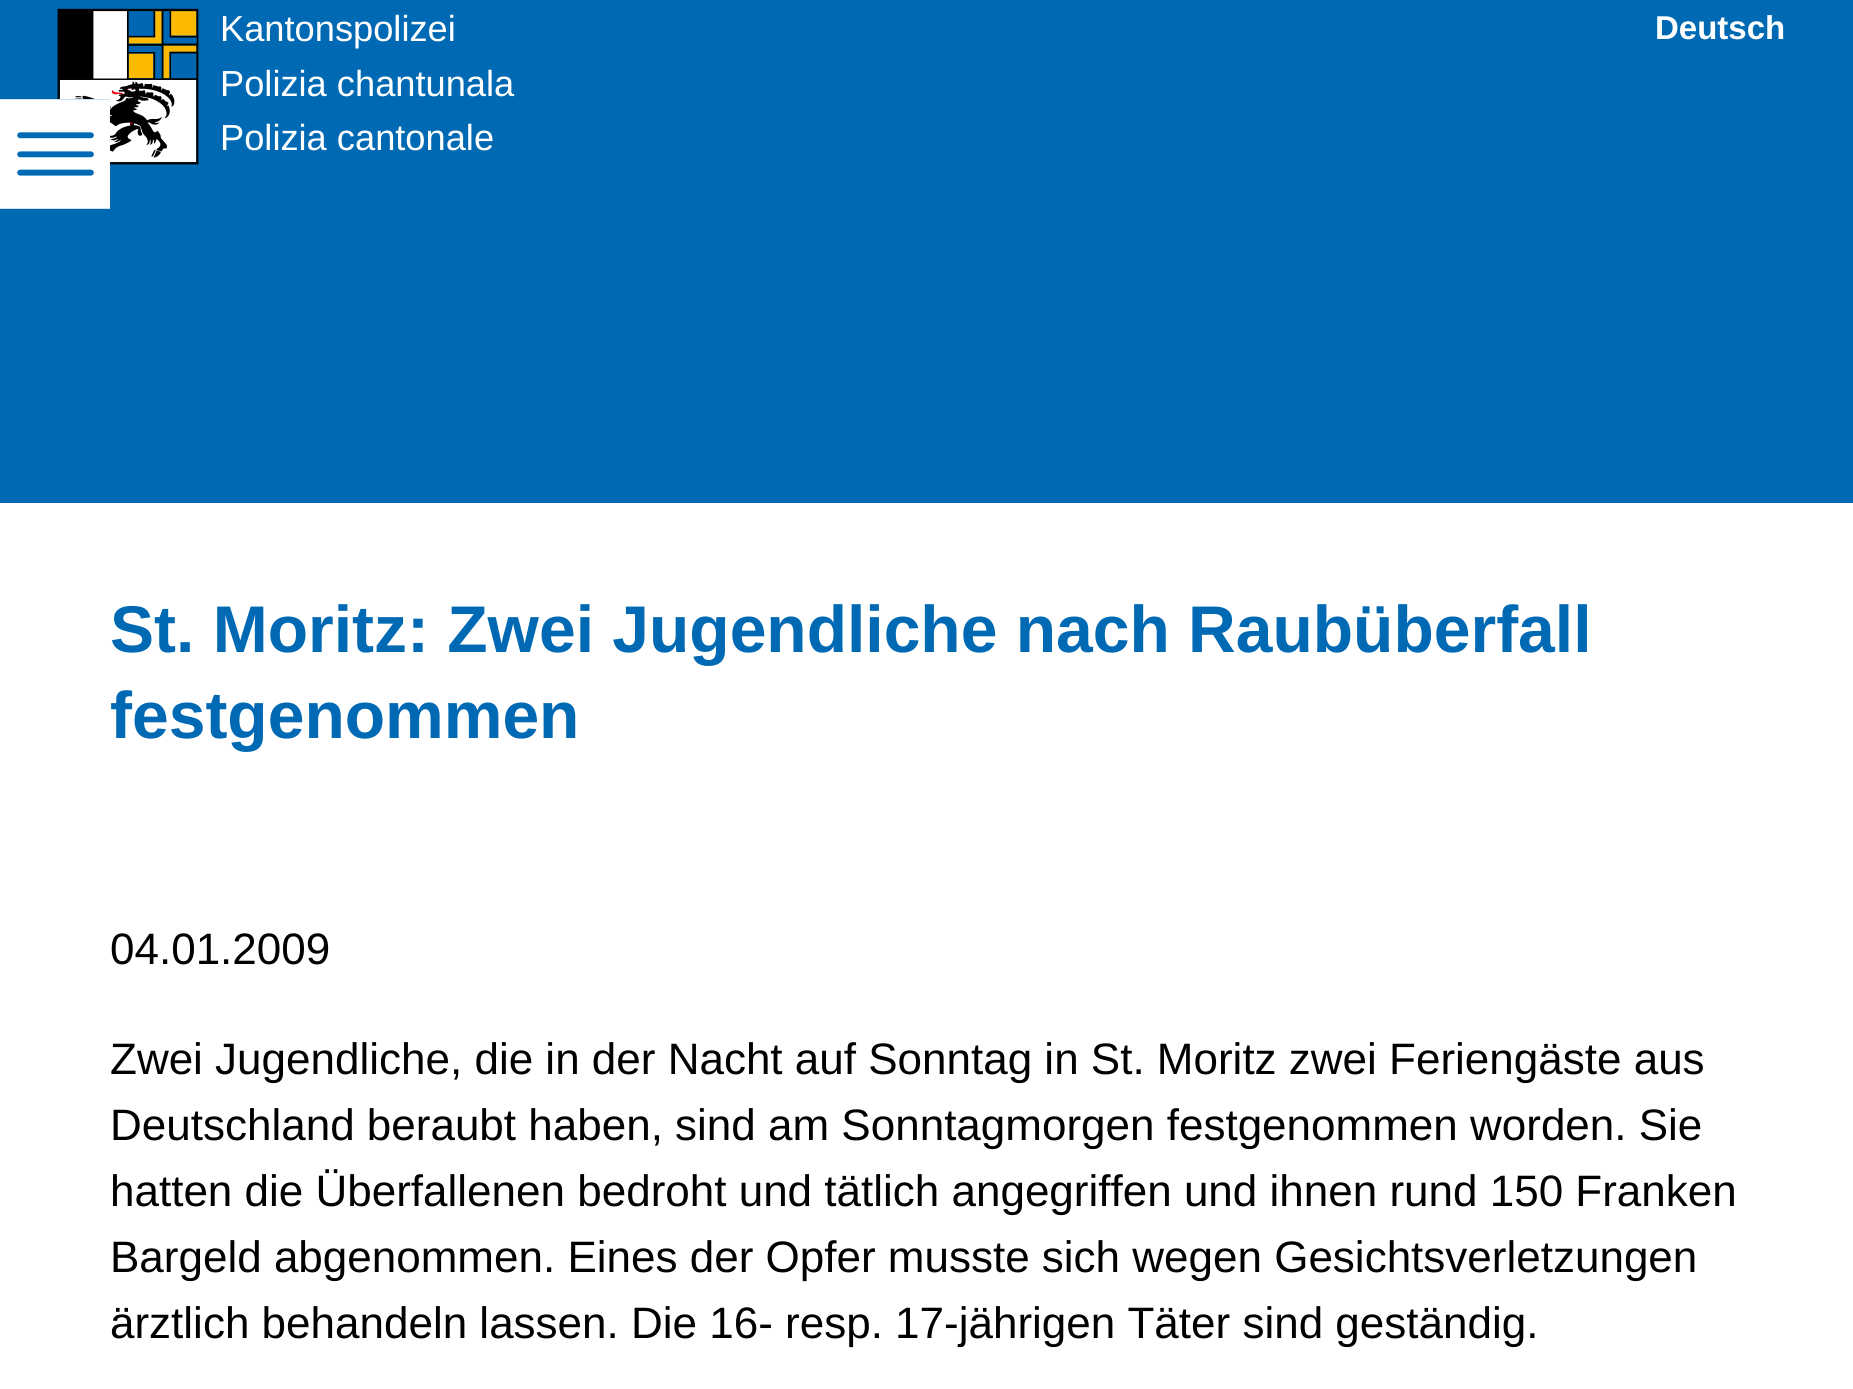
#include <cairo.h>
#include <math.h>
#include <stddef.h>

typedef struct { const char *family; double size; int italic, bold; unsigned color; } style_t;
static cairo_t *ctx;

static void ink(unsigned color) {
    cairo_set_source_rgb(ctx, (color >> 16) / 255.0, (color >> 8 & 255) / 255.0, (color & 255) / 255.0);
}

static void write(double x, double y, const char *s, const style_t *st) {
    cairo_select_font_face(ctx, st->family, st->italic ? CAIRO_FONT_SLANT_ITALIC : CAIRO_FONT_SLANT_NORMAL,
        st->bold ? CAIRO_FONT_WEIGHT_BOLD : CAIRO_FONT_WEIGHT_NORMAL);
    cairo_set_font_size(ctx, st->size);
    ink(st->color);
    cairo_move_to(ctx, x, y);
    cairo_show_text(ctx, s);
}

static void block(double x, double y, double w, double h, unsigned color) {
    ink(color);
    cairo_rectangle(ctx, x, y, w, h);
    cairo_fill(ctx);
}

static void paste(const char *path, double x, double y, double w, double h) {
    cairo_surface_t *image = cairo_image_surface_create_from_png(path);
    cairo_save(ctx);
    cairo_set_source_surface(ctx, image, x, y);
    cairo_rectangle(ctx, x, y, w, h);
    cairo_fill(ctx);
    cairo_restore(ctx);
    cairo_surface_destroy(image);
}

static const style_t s1 = {"Liberation Sans", 36.25, 0, 0, 0xffffff};
static const style_t s2 = {"Liberation Sans", 33, 0, 1, 0xffffff};
static const style_t s3 = {"Liberation Sans", 66, 0, 1, 0x0069b4};
static const style_t s4 = {"Liberation Sans", 44, 0, 0, 0x000000};

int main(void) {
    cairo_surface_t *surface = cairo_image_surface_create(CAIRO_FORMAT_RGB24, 1853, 1389);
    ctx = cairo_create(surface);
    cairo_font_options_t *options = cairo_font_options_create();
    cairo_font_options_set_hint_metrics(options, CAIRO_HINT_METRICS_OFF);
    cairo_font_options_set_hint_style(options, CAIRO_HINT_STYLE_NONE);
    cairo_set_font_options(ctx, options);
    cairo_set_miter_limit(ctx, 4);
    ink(0xffffff);
    cairo_paint(ctx);
    block(0, 0, 1853, 503, 0x0069b4);
    paste("pic1.png", 57, 8, 142, 157);
    write(220, 41, "Kantonspolizei", &s1);
    write(220, 96, "Polizia chantunala", &s1);
    write(220, 150, "Polizia cantonale", &s1);
    write(1655, 39, "Deutsch", &s2);
    block(57, 99, 53, 66, 0x0069b4);
    paste("pic2.png", 0, 99, 110, 110);
    write(110, 652, "St. Moritz: Zwei Jugendliche nach Raubüberfall", &s3);
    write(110, 738, "festgenommen", &s3);
    write(110, 964, "04.01.2009", &s4);
    write(110, 1074, "Zwei Jugendliche, die in der Nacht auf Sonntag in St. Moritz zwei Feriengäste aus", &s4);
    write(110, 1140, "Deutschland beraubt haben, sind am Sonntagmorgen festgenommen worden. Sie", &s4);
    write(110, 1206, "hatten die Überfallenen bedroht und tätlich angegriffen und ihnen rund 150 Franken", &s4);
    write(110, 1272, "Bargeld abgenommen. Eines der Opfer musste sich wegen Gesichtsverletzungen", &s4);
    write(110, 1338, "ärztlich behandeln lassen. Die 16- resp. 17-jährigen Täter sind geständig.", &s4);
    cairo_surface_write_to_png(surface, "screenshot.png");
    cairo_font_options_destroy(options);
    cairo_destroy(ctx);
    cairo_surface_destroy(surface);
    return 0;
}
